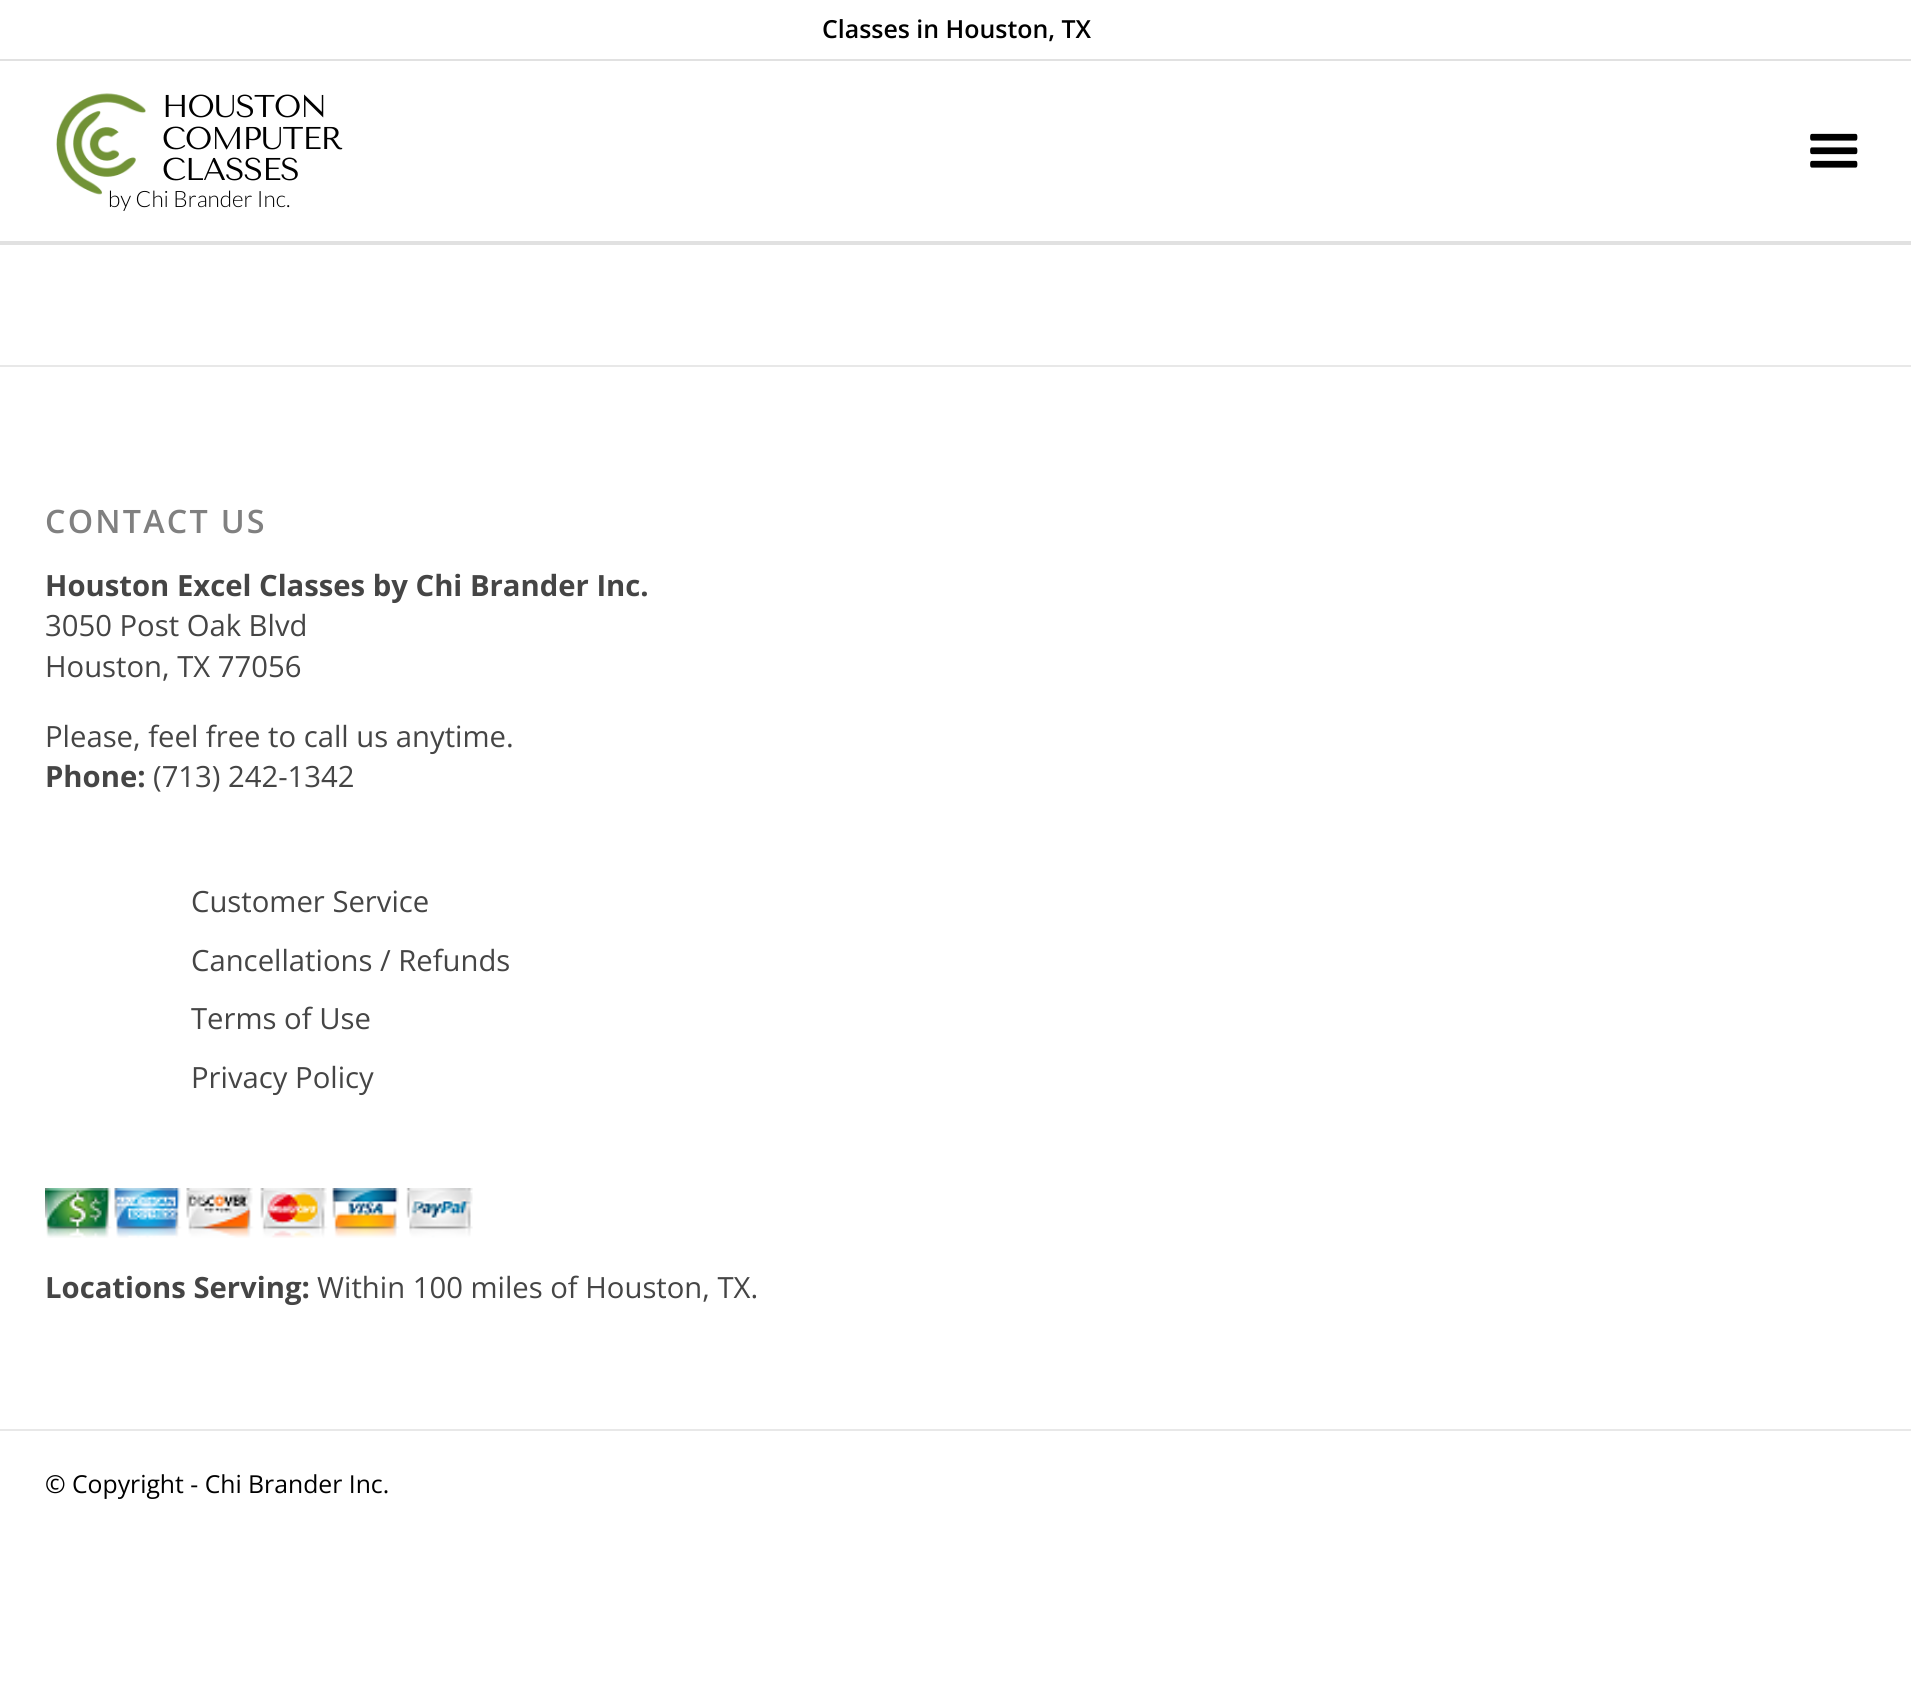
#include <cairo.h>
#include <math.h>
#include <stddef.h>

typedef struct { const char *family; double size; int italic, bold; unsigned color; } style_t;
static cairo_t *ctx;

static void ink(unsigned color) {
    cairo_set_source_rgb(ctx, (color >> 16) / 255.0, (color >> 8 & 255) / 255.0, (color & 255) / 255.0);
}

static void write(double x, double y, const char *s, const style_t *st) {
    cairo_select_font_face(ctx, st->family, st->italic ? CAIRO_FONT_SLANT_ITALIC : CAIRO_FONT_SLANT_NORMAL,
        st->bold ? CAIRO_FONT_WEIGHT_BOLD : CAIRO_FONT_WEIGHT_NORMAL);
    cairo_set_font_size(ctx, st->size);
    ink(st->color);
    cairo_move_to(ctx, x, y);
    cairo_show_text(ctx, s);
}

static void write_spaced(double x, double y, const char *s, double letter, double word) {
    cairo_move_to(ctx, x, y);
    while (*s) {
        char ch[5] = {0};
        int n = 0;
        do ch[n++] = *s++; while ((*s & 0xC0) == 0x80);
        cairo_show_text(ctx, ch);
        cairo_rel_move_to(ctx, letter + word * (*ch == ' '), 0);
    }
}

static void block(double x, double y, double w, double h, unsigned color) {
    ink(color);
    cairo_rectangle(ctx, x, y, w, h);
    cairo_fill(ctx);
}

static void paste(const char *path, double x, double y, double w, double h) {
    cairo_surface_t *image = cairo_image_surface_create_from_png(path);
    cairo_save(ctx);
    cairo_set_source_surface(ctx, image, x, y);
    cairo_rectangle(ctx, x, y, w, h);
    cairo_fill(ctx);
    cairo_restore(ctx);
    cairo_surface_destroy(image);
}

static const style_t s1 = {"Open Sans SemiBold", 24.9, 0, 0, 0x000000};
static const style_t s2 = {"Lato Light", 22.5, 0, 0, 0x000000};
static const style_t s3 = {"Open Sans", 29.25, 0, 1, 0x454545};
static const style_t s4 = {"Open Sans", 29.25, 0, 0, 0x454545};
static const style_t s5 = {"Open Sans", 24.75, 0, 0, 0x000000};

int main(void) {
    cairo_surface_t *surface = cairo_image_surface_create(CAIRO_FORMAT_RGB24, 1911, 1685);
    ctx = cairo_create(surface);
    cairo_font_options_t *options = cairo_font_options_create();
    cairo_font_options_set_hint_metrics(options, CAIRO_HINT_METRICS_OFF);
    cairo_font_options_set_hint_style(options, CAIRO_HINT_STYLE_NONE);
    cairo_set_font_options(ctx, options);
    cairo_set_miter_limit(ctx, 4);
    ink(0xffffff);
    cairo_paint(ctx);
    block(0, 59, 1911, 2, 0xe1e1e1);
    write(822, 38, "Classes in Houston, TX", &s1);
    block(0, 241, 1911, 4, 0xe1e1e1);
    paste("pic1.png", 56, 93, 90, 102);
    cairo_select_font_face(ctx, "Tenor Sans", CAIRO_FONT_SLANT_NORMAL, CAIRO_FONT_WEIGHT_NORMAL);
    cairo_set_font_size(ctx, 31.5);
    ink(0x000000);
    write_spaced(162, 117, "HOUSTON", -1, 0);
    write_spaced(162, 149, "COMPUTER", -1, 0);
    write_spaced(162, 180, "CLASSES", -1, 0);
    write(108, 207, "by Chi Brander Inc.", &s2);
    paste("pic2.png", 1810, 133, 48, 35);
    block(0, 365, 1911, 2, 0xe8e8e8);
    block(0, 1429, 1911, 2, 0xe8e8e8);
    cairo_select_font_face(ctx, "Open Sans SemiBold", CAIRO_FONT_SLANT_NORMAL, CAIRO_FONT_WEIGHT_NORMAL);
    cairo_set_font_size(ctx, 32.25);
    ink(0x808080);
    write_spaced(45, 533, "CONTACT US", 2.25, 0);
    write(45, 596, "Houston Excel Classes by Chi Brander Inc.", &s3);
    write(45, 636, "3050 Post Oak Blvd", &s4);
    write(45, 677, "Houston, TX 77056", &s4);
    write(45, 747, "Please, feel free to call us anytime.", &s4);
    write(45, 787, "Phone:", &s3);
    write(153, 787, "(713) 242-1342", &s4);
    write(191, 912, "Customer Service", &s4);
    write(191, 971, "Cancellations / Refunds", &s4);
    write(191, 1029, "Terms of Use", &s4);
    write(191, 1088, "Privacy Policy", &s4);
    paste("pic3.png", 45, 1188, 428, 50);
    write(45, 1298, "Locations Serving:", &s3);
    write(317, 1298, "Within 100 miles of Houston, TX.", &s4);
    write(45, 1493, "© Copyright - Chi Brander Inc.", &s5);
    cairo_surface_write_to_png(surface, "screenshot.png");
    cairo_font_options_destroy(options);
    cairo_destroy(ctx);
    cairo_surface_destroy(surface);
    return 0;
}
